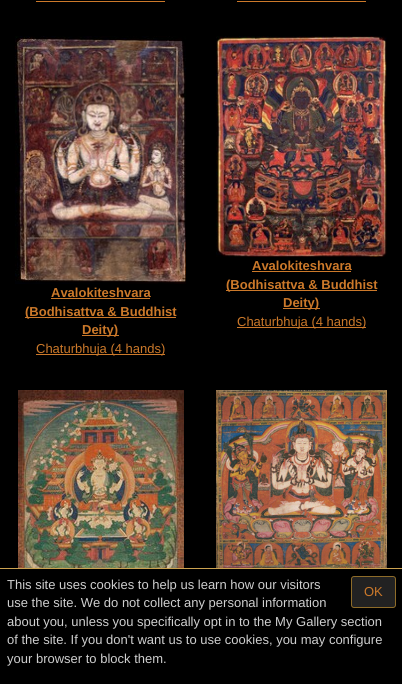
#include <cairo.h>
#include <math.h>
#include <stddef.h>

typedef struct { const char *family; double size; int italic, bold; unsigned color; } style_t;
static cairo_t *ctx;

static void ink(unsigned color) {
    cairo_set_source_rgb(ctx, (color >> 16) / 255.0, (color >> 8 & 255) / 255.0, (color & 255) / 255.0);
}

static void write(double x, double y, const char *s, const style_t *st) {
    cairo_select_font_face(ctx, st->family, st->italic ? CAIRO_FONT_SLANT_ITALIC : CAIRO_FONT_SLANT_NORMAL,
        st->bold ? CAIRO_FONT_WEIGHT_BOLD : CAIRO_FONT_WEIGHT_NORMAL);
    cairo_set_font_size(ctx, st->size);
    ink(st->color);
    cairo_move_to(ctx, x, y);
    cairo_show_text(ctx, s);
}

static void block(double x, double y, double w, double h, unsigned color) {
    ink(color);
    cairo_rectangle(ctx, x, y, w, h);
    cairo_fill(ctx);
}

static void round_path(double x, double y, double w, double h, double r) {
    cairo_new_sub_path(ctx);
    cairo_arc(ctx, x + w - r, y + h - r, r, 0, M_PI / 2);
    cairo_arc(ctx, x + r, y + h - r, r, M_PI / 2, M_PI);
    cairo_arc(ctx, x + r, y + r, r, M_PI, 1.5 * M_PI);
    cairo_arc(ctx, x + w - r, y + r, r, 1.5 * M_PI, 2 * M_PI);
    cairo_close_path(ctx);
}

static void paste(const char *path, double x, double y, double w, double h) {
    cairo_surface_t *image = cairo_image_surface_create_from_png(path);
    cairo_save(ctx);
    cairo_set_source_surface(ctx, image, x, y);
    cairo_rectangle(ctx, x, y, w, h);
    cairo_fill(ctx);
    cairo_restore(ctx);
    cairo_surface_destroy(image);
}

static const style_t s1 = {"Liberation Sans", 13, 0, 1, 0xcc792a};
static const style_t s2 = {"Liberation Sans", 13, 0, 0, 0xcc792a};
static const style_t s3 = {"Liberation Sans", 13, 0, 0, 0xcfcfcf};

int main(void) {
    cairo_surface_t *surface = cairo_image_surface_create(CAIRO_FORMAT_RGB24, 402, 684);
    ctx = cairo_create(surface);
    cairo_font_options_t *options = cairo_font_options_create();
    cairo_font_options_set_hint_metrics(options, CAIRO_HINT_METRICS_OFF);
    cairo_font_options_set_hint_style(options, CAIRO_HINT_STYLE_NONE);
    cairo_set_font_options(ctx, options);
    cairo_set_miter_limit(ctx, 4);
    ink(0x000000);
    cairo_paint(ctx);
    block(36, 1, 129, 1, 0xcc792a);
    block(237, 1, 129, 1, 0xcc792a);
    paste("pic1.png", 15, 36, 171, 248);
    write(51, 297, "Avalokiteshvara", &s1);
    block(51, 298, 99, 1, 0xcc792a);
    block(25, 317, 151, 1, 0xcc792a);
    write(25, 316, "(Bodhisattva & Buddhist", &s1);
    block(82, 335, 37, 1, 0xcc792a);
    write(82, 334, "Deity)", &s1);
    block(36, 354, 129, 1, 0xcc792a);
    write(36, 353, "Chaturbhuja (4 hands)", &s2);
    paste("pic2.png", 216, 36, 171, 221);
    write(252, 270, "Avalokiteshvara", &s1);
    block(252, 271, 99, 1, 0xcc792a);
    block(226, 290, 151, 1, 0xcc792a);
    write(226, 289, "(Bodhisattva & Buddhist", &s1);
    block(283, 308, 37, 1, 0xcc792a);
    write(283, 307, "Deity)", &s1);
    block(237, 327, 129, 1, 0xcc792a);
    write(237, 326, "Chaturbhuja (4 hands)", &s2);
    paste("pic3.png", 18, 390, 166, 178);
    paste("pic4.png", 216, 390, 171, 178);
    block(0, 568, 402, 1, 0xcca351);
    write(7, 589, "This site uses cookies to help us learn how our visitors", &s3);
    write(7, 607, "use the site. We do not collect any personal information", &s3);
    write(7, 626, "about you, unless you specifically opt in to the My Gallery section", &s3);
    write(7, 644, "of the site. If you don't want us to use cookies, you may configure", &s3);
    write(7, 663, "your browser to block them.", &s3);
    ink(0x222222);
    round_path(351.5, 576.5, 44, 31, 2.5);
    cairo_fill_preserve(ctx);
    ink(0x8e6c29);
    cairo_set_line_width(ctx, 1);
    cairo_stroke(ctx);
    write(364, 596, "OK", &s2);
    cairo_surface_write_to_png(surface, "screenshot.png");
    cairo_font_options_destroy(options);
    cairo_destroy(ctx);
    cairo_surface_destroy(surface);
    return 0;
}
